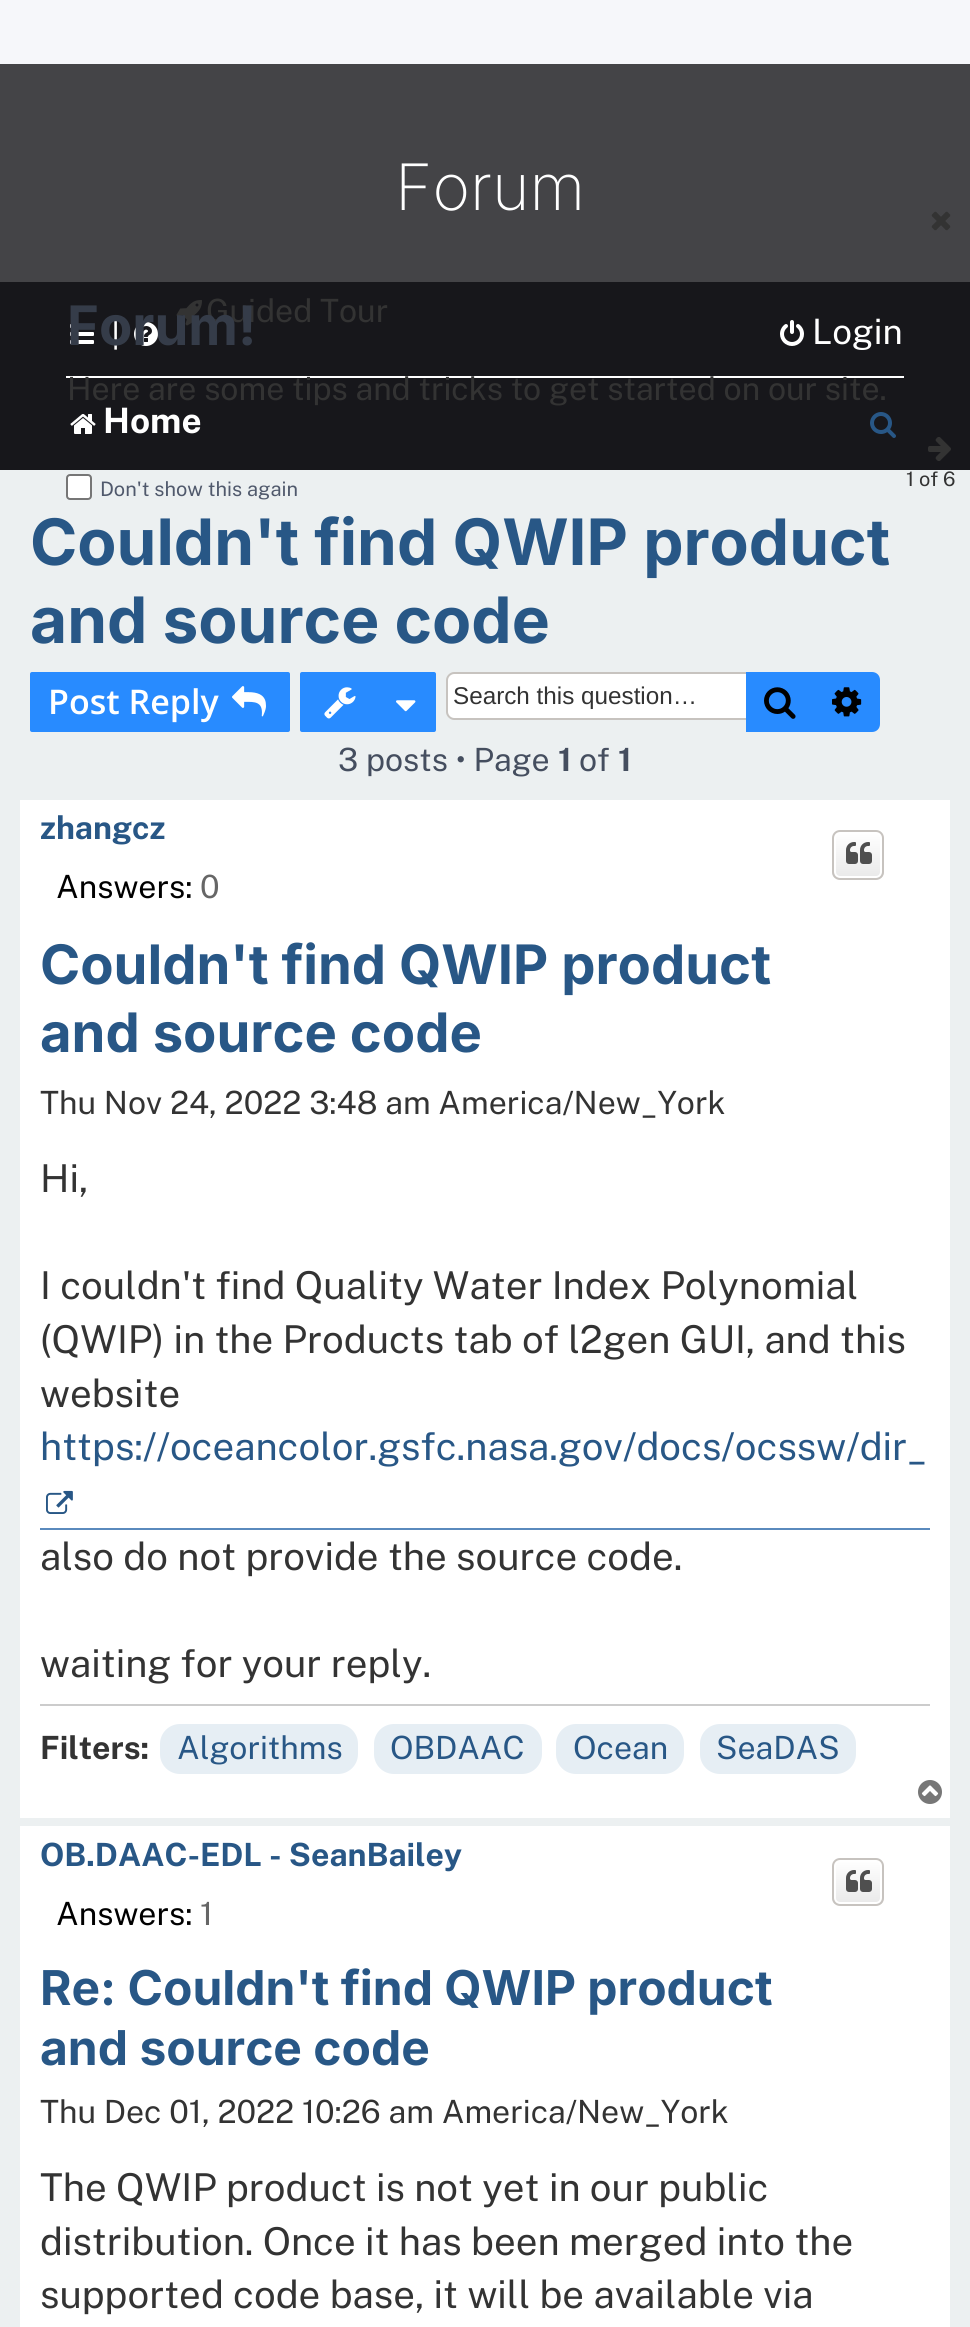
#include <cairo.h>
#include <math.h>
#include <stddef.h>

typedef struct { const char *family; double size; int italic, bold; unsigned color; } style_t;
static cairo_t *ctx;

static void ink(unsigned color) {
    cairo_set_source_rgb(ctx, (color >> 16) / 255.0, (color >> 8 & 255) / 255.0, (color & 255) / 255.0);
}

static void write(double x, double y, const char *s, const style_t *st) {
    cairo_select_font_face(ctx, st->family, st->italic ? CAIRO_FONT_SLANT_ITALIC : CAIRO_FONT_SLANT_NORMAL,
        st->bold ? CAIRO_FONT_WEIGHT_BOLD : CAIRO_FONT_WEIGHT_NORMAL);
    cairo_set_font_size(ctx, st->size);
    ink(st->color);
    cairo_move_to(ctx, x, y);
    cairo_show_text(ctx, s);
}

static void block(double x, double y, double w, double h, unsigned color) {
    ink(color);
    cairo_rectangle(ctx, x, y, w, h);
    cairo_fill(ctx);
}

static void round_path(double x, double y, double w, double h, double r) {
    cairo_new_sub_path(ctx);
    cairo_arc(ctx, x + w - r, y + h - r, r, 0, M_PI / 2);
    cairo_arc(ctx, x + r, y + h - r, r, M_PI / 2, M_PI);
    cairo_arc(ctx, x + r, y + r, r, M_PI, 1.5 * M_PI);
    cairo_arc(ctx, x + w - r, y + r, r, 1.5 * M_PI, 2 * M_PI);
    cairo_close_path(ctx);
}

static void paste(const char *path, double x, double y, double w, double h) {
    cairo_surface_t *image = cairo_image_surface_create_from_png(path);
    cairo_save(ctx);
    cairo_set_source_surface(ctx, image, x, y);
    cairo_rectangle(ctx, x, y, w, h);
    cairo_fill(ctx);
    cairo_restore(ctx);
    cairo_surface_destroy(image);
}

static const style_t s1 = {"Inter ExtraLight", 64, 0, 0, 0xffffff};
static const style_t s2 = {"Public Sans", 32, 0, 0, 0x333333};
static const style_t s3 = {"Public Sans", 35, 0, 0, 0xffffff};
static const style_t s4 = {"Inter", 54.4, 0, 1, 0x353c49};
static const style_t s5 = {"Public Sans", 20, 0, 0, 0x333333};
static const style_t s6 = {"Public Sans", 20, 0, 0, 0x50596c};
static const style_t s7 = {"Public Sans", 35, 0, 1, 0xffffff};
static const style_t s8 = {"Inter", 64, 0, 1, 0x285786};
static const style_t s9 = {"Open Sans SemiBold", 34, 0, 0, 0xffffff};
static const style_t s10 = {"Liberation Sans", 24.25, 0, 0, 0x333333};
static const style_t s11 = {"Public Sans", 32, 0, 0, 0x454e5f};
static const style_t s12 = {"Public Sans", 32, 0, 1, 0x454e5f};
static const style_t s13 = {"Public Sans", 32, 0, 1, 0x285786};
static const style_t s14 = {"Public Sans", 32, 0, 0, 0x000000};
static const style_t s15 = {"Public Sans", 32, 0, 0, 0x666666};
static const style_t s16 = {"Inter", 54.4, 0, 1, 0x285786};
static const style_t s17 = {"Public Sans", 38.4, 0, 0, 0x333333};
static const style_t s18 = {"Public Sans", 38.4, 0, 0, 0x285786};
static const style_t s19 = {"Public Sans", 32, 0, 1, 0x333333};
static const style_t s20 = {"Public Sans", 32, 0, 0, 0x285786};
static const style_t s21 = {"Inter", 48, 0, 1, 0x285786};

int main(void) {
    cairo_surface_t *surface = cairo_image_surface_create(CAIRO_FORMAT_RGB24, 970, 2327);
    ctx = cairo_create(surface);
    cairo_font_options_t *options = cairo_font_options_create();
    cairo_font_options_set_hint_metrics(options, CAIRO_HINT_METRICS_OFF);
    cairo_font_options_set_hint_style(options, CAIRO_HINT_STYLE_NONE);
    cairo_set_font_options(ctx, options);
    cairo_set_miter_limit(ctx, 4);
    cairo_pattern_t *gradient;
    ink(0xf6f7fa);
    cairo_paint(ctx);
    block(0, 470, 970, 1857, 0xecf0f1);
    block(0, 64, 970, 218, 0x444447);
    write(395, 210, "Forum", &s1);
    block(0, 282, 970, 188, 0x17171b);
    paste("pic1.png", 176, 300, 26, 26);
    write(206, 322, "Guided Tour", &s2);
    paste("pic2.png", 931, 211, 20, 20);
    paste("pic4.png", 70, 324, 24, 20);
    write(111, 344, "|", &s3);
    paste("pic5.png", 134, 322, 24, 24);
    write(67, 345, "Forum!", &s4);
    block(66, 376, 838, 2, 0xffffff);
    write(67, 400, "Here are some tips and tricks to get started on our site.", &s2);
    paste("pic3.png", 928, 437, 23, 24);
    write(906, 486, "1 of 6", &s5);
    ink(0xffffff);
    round_path(67, 475, 24, 24, 3);
    cairo_fill_preserve(ctx);
    ink(0x767676);
    cairo_stroke(ctx);
    write(100, 496, "Don't show this again", &s6);
    paste("pic6.png", 780, 320, 24, 26);
    write(812, 344, "Login", &s3);
    paste("pic7.png", 70, 414, 26, 20);
    write(103, 433, "Home", &s7);
    paste("pic8.png", 870, 412, 26, 26);
    write(30, 565, "Couldn't find QWIP product", &s8);
    write(30, 643, "and source code", &s8);
    ink(0x288bff);
    round_path(31, 673, 258, 58, 1);
    cairo_fill_preserve(ctx);
    cairo_stroke(ctx);
    write(48, 714, "Post Reply", &s9);
    paste("pic9.png", 232, 686, 34, 31);
    ink(0x288bff);
    round_path(301, 673, 134, 58, 1);
    cairo_fill_preserve(ctx);
    cairo_stroke(ctx);
    paste("pic10.png", 324, 687, 32, 32);
    paste("pic11.png", 396, 700, 20, 12);
    ink(0xffffff);
    cairo_new_path(ctx);
    cairo_move_to(ctx, 454, 674);
    cairo_line_to(ctx, 746, 674);
    cairo_line_to(ctx, 746, 718);
    cairo_line_to(ctx, 454, 718);
    cairo_curve_to(ctx, 450.5, 718, 448, 715.5, 448, 712);
    cairo_line_to(ctx, 448, 680);
    cairo_curve_to(ctx, 448, 676.5, 450.5, 674, 454, 674);
    cairo_close_path(ctx);
    cairo_fill(ctx);
    ink(0xc7c3bf);
    cairo_set_fill_rule(ctx, CAIRO_FILL_RULE_EVEN_ODD);
    cairo_new_path(ctx);
    cairo_move_to(ctx, 454, 672);
    cairo_line_to(ctx, 746, 672);
    cairo_line_to(ctx, 746, 720);
    cairo_line_to(ctx, 454, 720);
    cairo_curve_to(ctx, 450, 720, 446, 716, 446, 712);
    cairo_line_to(ctx, 446, 680);
    cairo_curve_to(ctx, 446, 676, 450, 672, 454, 672);
    cairo_close_path(ctx);
    cairo_move_to(ctx, 454, 674);
    cairo_line_to(ctx, 746, 674);
    cairo_line_to(ctx, 746, 718);
    cairo_line_to(ctx, 454, 718);
    cairo_curve_to(ctx, 451, 718, 448, 715, 448, 712);
    cairo_line_to(ctx, 448, 680);
    cairo_curve_to(ctx, 448, 677, 451, 674, 454, 674);
    cairo_close_path(ctx);
    cairo_fill(ctx);
    write(453, 704, "Search this question…", &s10);
    block(746, 672, 68, 60, 0x288bff);
    paste("pic12.png", 764, 687, 32, 32);
    cairo_new_path(ctx);
    cairo_move_to(ctx, 815, 673);
    cairo_line_to(ctx, 872, 673);
    cairo_curve_to(ctx, 876, 673, 879, 676, 879, 680);
    cairo_line_to(ctx, 879, 724);
    cairo_curve_to(ctx, 879, 728, 876, 731, 872, 731);
    cairo_line_to(ctx, 815, 731);
    cairo_close_path(ctx);
    cairo_fill_preserve(ctx);
    cairo_stroke(ctx);
    paste("pic13.png", 832, 687, 30, 30);
    write(338, 771, "3 posts • Page", &s11);
    write(558, 771, "1", &s12);
    write(579, 771, "of", &s11);
    write(618, 771, "1", &s12);
    block(20, 800, 930, 1018, 0xffffff);
    write(40, 839, "zhangcz", &s13);
    write(56, 898, "Answers:", &s14);
    write(200, 898, "0", &s15);
    cairo_save(ctx);
    cairo_set_fill_rule(ctx, CAIRO_FILL_RULE_WINDING);
    round_path(832, 830, 52, 50, 8);
    cairo_clip(ctx);
    gradient = cairo_pattern_create_linear(858, 832, 858, 878);
    cairo_pattern_add_color_stop_rgba(gradient, 0, 1, 1, 1, 1);
    cairo_pattern_add_color_stop_rgba(gradient, 1, 0.914, 0.914, 0.914, 1);
    cairo_set_source(ctx, gradient);
    cairo_pattern_destroy(gradient);
    cairo_rectangle(ctx, 832, 832, 52, 46);
    cairo_fill(ctx);
    cairo_restore(ctx);
    round_path(835, 833, 46, 44, 5);
    ink(0xffffff);
    cairo_stroke(ctx);
    round_path(833, 831, 50, 48, 7);
    ink(0xc7c3bf);
    cairo_stroke(ctx);
    paste("pic14.png", 846, 842, 26, 22);
    write(40, 984, "Couldn't find QWIP product", &s16);
    write(40, 1052, "and source code", &s16);
    write(40, 1114, "Thu Nov 24, 2022 3:48 am America/New_York", &s2);
    write(40, 1192, "Hi,", &s17);
    write(40, 1299, "I couldn't find Quality Water Index Polynomial", &s17);
    write(40, 1353, "(QWIP) in the Products tab of l2gen GUI, and this", &s17);
    write(40, 1407, "website", &s17);
    block(40, 1528, 890, 2, 0x5a8abd);
    write(40, 1460, "https://oceancolor.gsfc.nasa.gov/docs/ocssw/dir_", &s18);
    paste("pic15.png", 46, 1490, 27, 24);
    write(40, 1570, "also do not provide the source code.", &s17);
    write(40, 1677, "waiting for your reply.", &s17);
    block(40, 1704, 890, 2, 0xcccccc);
    write(40, 1759, "Filters:", &s19);
    ink(0xe6eef4);
    round_path(160, 1724, 198, 50, 20);
    cairo_fill(ctx);
    write(177, 1759, "Algorithms", &s20);
    ink(0xe6eef4);
    round_path(374, 1724, 168, 50, 20);
    cairo_fill(ctx);
    write(390, 1759, "OBDAAC", &s20);
    ink(0xe6eef4);
    round_path(556, 1724, 128, 50, 20);
    cairo_fill(ctx);
    write(573, 1759, "Ocean", &s20);
    ink(0xe6eef4);
    round_path(700, 1724, 156, 50, 20);
    cairo_fill(ctx);
    write(716, 1759, "SeaDAS", &s20);
    paste("pic16.png", 918, 1780, 24, 24);
    block(20, 1826, 930, 501, 0xffffff);
    write(40, 1866, "OB.DAAC-EDL - SeanBailey", &s13);
    write(56, 1925, "Answers:", &s14);
    write(200, 1925, "1", &s15);
    cairo_save(ctx);
    cairo_set_fill_rule(ctx, CAIRO_FILL_RULE_WINDING);
    round_path(832, 1858, 52, 48, 8);
    cairo_clip(ctx);
    gradient = cairo_pattern_create_linear(858, 1860, 858, 1904);
    cairo_pattern_add_color_stop_rgba(gradient, 0, 1, 1, 1, 1);
    cairo_pattern_add_color_stop_rgba(gradient, 1, 0.914, 0.914, 0.914, 1);
    cairo_set_source(ctx, gradient);
    cairo_pattern_destroy(gradient);
    cairo_rectangle(ctx, 832, 1860, 52, 44);
    cairo_fill(ctx);
    cairo_restore(ctx);
    round_path(835, 1861, 46, 42, 5);
    ink(0xffffff);
    cairo_stroke(ctx);
    round_path(833, 1859, 50, 46, 7);
    ink(0xc7c3bf);
    cairo_stroke(ctx);
    paste("pic17.png", 846, 1870, 26, 22);
    write(40, 2005, "Re: Couldn't find QWIP product", &s21);
    write(40, 2065, "and source code", &s21);
    write(40, 2123, "Thu Dec 01, 2022 10:26 am America/New_York", &s2);
    write(40, 2201, "The QWIP product is not yet in our public", &s17);
    write(40, 2255, "distribution. Once it has been merged into the", &s17);
    write(40, 2308, "supported code base, it will be available via", &s17);
    cairo_surface_write_to_png(surface, "screenshot.png");
    cairo_font_options_destroy(options);
    cairo_destroy(ctx);
    cairo_surface_destroy(surface);
    return 0;
}
